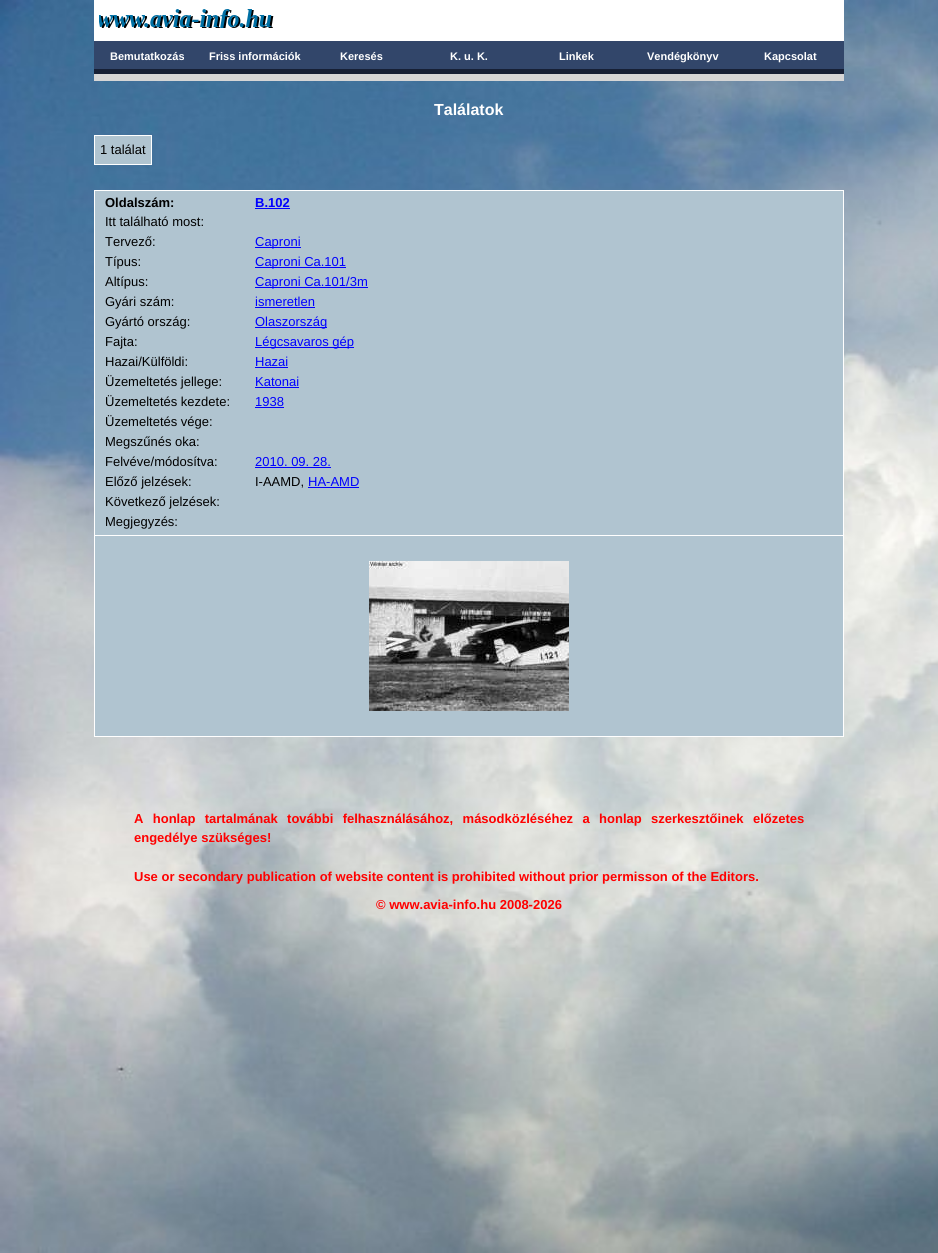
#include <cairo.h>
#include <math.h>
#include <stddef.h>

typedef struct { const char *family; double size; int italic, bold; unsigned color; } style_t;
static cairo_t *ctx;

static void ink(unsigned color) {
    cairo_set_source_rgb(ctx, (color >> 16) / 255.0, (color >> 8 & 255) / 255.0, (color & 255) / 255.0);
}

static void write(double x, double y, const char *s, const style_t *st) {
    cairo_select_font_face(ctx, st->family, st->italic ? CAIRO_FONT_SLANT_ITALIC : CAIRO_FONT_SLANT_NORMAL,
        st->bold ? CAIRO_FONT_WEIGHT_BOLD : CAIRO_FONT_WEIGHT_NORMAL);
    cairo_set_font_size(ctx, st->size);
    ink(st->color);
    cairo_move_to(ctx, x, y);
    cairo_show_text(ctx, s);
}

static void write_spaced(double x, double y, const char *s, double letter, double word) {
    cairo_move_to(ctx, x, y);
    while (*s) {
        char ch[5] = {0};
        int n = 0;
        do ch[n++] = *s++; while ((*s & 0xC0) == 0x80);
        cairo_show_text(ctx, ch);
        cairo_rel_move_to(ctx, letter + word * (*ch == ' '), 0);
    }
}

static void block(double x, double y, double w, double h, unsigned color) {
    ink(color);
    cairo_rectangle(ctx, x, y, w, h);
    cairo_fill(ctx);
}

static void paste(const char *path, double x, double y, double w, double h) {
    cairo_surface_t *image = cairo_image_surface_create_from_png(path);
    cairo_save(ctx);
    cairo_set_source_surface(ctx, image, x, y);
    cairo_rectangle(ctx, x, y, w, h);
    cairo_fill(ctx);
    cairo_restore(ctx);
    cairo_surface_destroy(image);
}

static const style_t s1 = {"Liberation Sans", 11, 0, 1, 0xffffff};
static const style_t s2 = {"Liberation Sans", 16, 0, 1, 0xffffff};
static const style_t s3 = {"Liberation Sans", 13, 0, 0, 0x000000};
static const style_t s4 = {"Liberation Sans", 13, 0, 1, 0x000000};
static const style_t s5 = {"Liberation Sans", 13, 0, 1, 0x0000ff};
static const style_t s6 = {"Liberation Sans", 13, 0, 0, 0x0000ff};
static const style_t s7 = {"Liberation Sans", 13, 0, 1, 0xff0000};

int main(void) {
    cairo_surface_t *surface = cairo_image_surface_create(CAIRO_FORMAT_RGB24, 938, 1253);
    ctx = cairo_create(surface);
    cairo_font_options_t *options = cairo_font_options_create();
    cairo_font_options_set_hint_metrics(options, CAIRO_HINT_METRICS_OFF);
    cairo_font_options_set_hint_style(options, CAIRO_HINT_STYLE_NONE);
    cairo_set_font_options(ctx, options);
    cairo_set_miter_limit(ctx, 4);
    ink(0xffffff);
    cairo_paint(ctx);
    paste("pic1.png", 0, 0, 938, 1253);
    block(94, 0, 750, 41, 0xffffff);
    paste("pic2.png", 99, 9, 175, 19);
    block(94, 41, 750, 28, 0x32466a);
    write(110, 60, "Bemutatkozás", &s1);
    write(209, 60, "Friss információk", &s1);
    write(340, 60, "Keresés", &s1);
    write(450, 60, "K. u. K.", &s1);
    write(559, 60, "Linkek", &s1);
    write(647, 60, "Vendégkönyv", &s1);
    write(764, 60, "Kapcsolat", &s1);
    block(94, 74, 750, 7, 0xd6d6d6);
    block(94, 69, 750, 5, 0x172035);
    write(434, 115, "Találatok", &s2);
    ink(0xb0c4d0);
    cairo_rectangle(ctx, 94.5, 135.5, 57, 29);
    cairo_fill_preserve(ctx);
    ink(0xffffff);
    cairo_set_line_width(ctx, 1);
    cairo_stroke(ctx);
    write(100, 154, "1 találat", &s3);
    ink(0xb0c4d0);
    cairo_rectangle(ctx, 94.5, 190.5, 749, 546);
    cairo_fill_preserve(ctx);
    ink(0xffffff);
    cairo_stroke(ctx);
    write(105, 207, "Oldalszám:", &s4);
    write(255, 207, "B.102", &s5);
    block(255, 208, 35, 1, 0x0000ff);
    write(105, 226, "Itt található most:", &s3);
    write(105, 246, "Tervező:", &s3);
    block(255, 247, 46, 1, 0x0000ff);
    write(255, 246, "Caproni", &s6);
    write(105, 266, "Típus:", &s3);
    block(255, 267, 91, 1, 0x0000ff);
    write(255, 266, "Caproni Ca.101", &s6);
    write(105, 286, "Altípus:", &s3);
    block(255, 287, 113, 1, 0x0000ff);
    write(255, 286, "Caproni Ca.101/3m", &s6);
    write(105, 306, "Gyári szám:", &s3);
    write(255, 306, "ismeretlen", &s6);
    block(255, 307, 60, 1, 0x0000ff);
    write(105, 326, "Gyártó ország:", &s3);
    block(255, 327, 72, 1, 0x0000ff);
    write(255, 326, "Olaszország", &s6);
    write(105, 346, "Fajta:", &s3);
    block(255, 347, 99, 1, 0x0000ff);
    write(255, 346, "Légcsavaros gép", &s6);
    write(105, 366, "Hazai/Külföldi:", &s3);
    write(255, 366, "Hazai", &s6);
    block(255, 367, 33, 1, 0x0000ff);
    write(105, 386, "Üzemeltetés jellege:", &s3);
    write(255, 386, "Katonai", &s6);
    block(255, 387, 44, 1, 0x0000ff);
    write(105, 406, "Üzemeltetés kezdete:", &s3);
    write(255, 406, "1938", &s6);
    block(255, 407, 29, 1, 0x0000ff);
    write(105, 426, "Üzemeltetés vége:", &s3);
    write(105, 446, "Megszűnés oka:", &s3);
    write(105, 466, "Felvéve/módosítva:", &s3);
    write(255, 466, "2010. 09. 28.", &s6);
    block(255, 467, 76, 1, 0x0000ff);
    write(105, 486, "Előző jelzések:", &s3);
    write(255, 486, "I-AAMD,", &s3);
    write(308, 486, "HA-AMD", &s6);
    block(308, 487, 51, 1, 0x0000ff);
    write(105, 506, "Következő jelzések:", &s3);
    write(105, 526, "Megjegyzés:", &s3);
    block(95, 535, 748, 1, 0xffffff);
    paste("pic3.png", 369, 561, 200, 150);
    cairo_select_font_face(ctx, "Liberation Sans", CAIRO_FONT_SLANT_NORMAL, CAIRO_FONT_WEIGHT_BOLD);
    ink(0xff0000);
    write_spaced(134, 823, "A honlap tartalmának további felhasználásához, másodközléséhez a honlap szerkesztőinek", 0, 5.75);
    write(753, 823, "előzetes", &s7);
    write(134, 842, "engedélye szükséges!", &s7);
    write(134, 881, "Use or secondary publication of website content is prohibited without prior permisson of the Editors.", &s7);
    write(376, 909, "© www.avia-info.hu 2008-2026", &s7);
    cairo_surface_write_to_png(surface, "screenshot.png");
    cairo_font_options_destroy(options);
    cairo_destroy(ctx);
    cairo_surface_destroy(surface);
    return 0;
}
